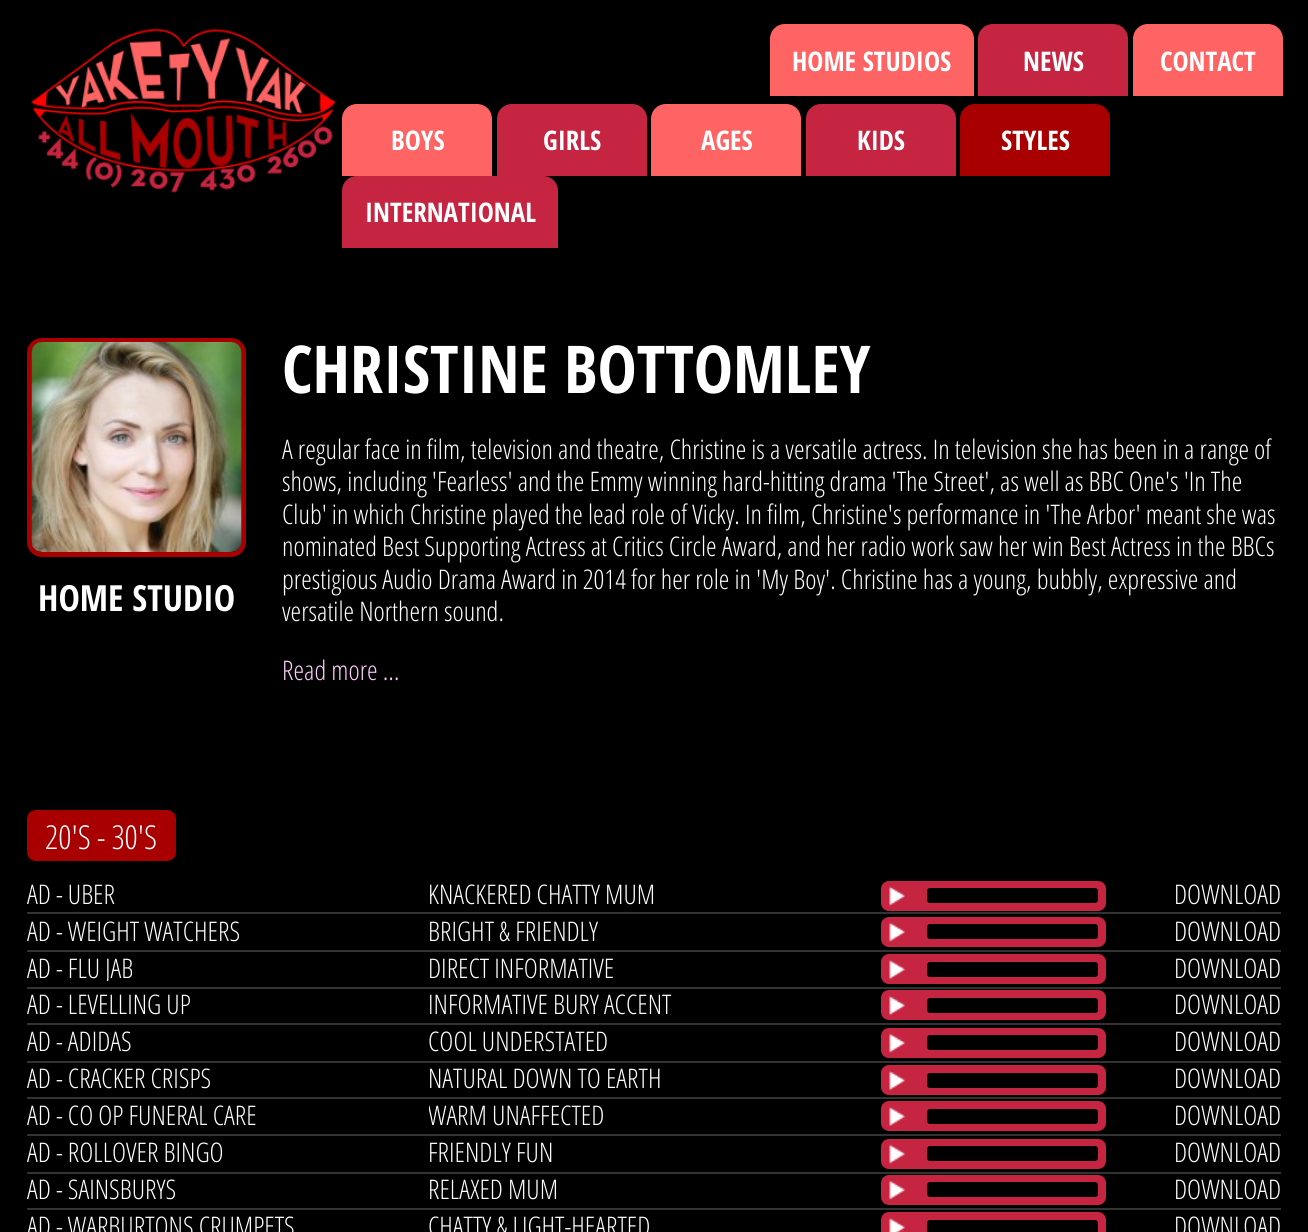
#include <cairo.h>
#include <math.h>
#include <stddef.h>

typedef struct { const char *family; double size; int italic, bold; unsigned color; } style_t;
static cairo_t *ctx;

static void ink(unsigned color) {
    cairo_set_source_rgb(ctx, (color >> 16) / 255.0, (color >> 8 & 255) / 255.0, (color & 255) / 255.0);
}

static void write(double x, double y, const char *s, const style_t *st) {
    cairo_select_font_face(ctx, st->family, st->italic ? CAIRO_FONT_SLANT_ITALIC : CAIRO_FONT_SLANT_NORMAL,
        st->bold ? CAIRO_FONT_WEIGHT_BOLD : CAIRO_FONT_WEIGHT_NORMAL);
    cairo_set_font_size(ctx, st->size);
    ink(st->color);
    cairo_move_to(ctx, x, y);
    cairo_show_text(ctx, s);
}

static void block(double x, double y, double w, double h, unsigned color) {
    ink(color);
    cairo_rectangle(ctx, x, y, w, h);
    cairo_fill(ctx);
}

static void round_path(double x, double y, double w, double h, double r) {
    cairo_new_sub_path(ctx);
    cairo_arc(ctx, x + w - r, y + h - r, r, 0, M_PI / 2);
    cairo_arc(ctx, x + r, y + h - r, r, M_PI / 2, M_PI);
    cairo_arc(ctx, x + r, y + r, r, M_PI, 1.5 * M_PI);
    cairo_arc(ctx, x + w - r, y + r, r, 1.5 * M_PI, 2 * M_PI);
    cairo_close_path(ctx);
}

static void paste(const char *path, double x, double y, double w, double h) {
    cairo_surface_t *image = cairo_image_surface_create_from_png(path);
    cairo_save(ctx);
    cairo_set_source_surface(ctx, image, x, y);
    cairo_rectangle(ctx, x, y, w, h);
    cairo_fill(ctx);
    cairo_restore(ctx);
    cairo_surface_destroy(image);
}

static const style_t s1 = {"Open Sans Condensed", 27, 0, 1, 0xffffff};
static const style_t s2 = {"Open Sans Condensed", 36, 0, 1, 0xffffff};
static const style_t s3 = {"Open Sans Condensed", 66, 0, 1, 0xffffff};
static const style_t s4 = {"Open Sans Condensed Light", 27, 0, 0, 0xffffff};
static const style_t s5 = {"Open Sans Condensed Light", 27, 0, 0, 0xffccff};
static const style_t s6 = {"Open Sans Condensed Light", 33, 0, 0, 0xffffff};

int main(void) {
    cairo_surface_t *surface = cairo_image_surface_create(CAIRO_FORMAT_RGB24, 1308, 1232);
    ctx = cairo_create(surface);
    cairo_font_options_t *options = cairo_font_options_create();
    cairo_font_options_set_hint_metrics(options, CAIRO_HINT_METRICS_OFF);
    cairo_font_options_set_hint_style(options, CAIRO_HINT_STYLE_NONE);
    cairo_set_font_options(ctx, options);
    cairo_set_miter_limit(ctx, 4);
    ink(0x000000);
    cairo_paint(ctx);
    paste("pic1.png", 31, 29, 305, 164);
    ink(0xff6464);
    cairo_new_path(ctx);
    cairo_move_to(ctx, 785, 24);
    cairo_line_to(ctx, 959, 24);
    cairo_curve_to(ctx, 967.5, 24, 974, 30.5, 974, 39);
    cairo_line_to(ctx, 974, 96);
    cairo_line_to(ctx, 770, 96);
    cairo_line_to(ctx, 770, 39);
    cairo_curve_to(ctx, 770, 30.5, 776.5, 24, 785, 24);
    cairo_close_path(ctx);
    cairo_fill(ctx);
    write(792, 71, "HOME STUDIOS", &s1);
    ink(0xc52541);
    cairo_new_path(ctx);
    cairo_move_to(ctx, 993, 24);
    cairo_line_to(ctx, 1113, 24);
    cairo_curve_to(ctx, 1121.5, 24, 1128, 30.5, 1128, 39);
    cairo_line_to(ctx, 1128, 96);
    cairo_line_to(ctx, 978, 96);
    cairo_line_to(ctx, 978, 39);
    cairo_curve_to(ctx, 978, 30.5, 984.5, 24, 993, 24);
    cairo_close_path(ctx);
    cairo_fill(ctx);
    write(1023, 71, "NEWS", &s1);
    ink(0xff6464);
    cairo_new_path(ctx);
    cairo_move_to(ctx, 1148, 24);
    cairo_line_to(ctx, 1268, 24);
    cairo_curve_to(ctx, 1276.5, 24, 1283, 30.5, 1283, 39);
    cairo_line_to(ctx, 1283, 96);
    cairo_line_to(ctx, 1133, 96);
    cairo_line_to(ctx, 1133, 39);
    cairo_curve_to(ctx, 1133, 30.5, 1139.5, 24, 1148, 24);
    cairo_close_path(ctx);
    cairo_fill(ctx);
    write(1160, 71, "CONTACT", &s1);
    ink(0xff6464);
    cairo_new_path(ctx);
    cairo_move_to(ctx, 357, 104);
    cairo_line_to(ctx, 477, 104);
    cairo_curve_to(ctx, 485.5, 104, 492, 110.5, 492, 119);
    cairo_line_to(ctx, 492, 176);
    cairo_line_to(ctx, 342, 176);
    cairo_line_to(ctx, 342, 119);
    cairo_curve_to(ctx, 342, 110.5, 348.5, 104, 357, 104);
    cairo_close_path(ctx);
    cairo_fill(ctx);
    write(391, 150, "BOYS", &s1);
    ink(0xc52541);
    cairo_new_path(ctx);
    cairo_move_to(ctx, 512, 104);
    cairo_line_to(ctx, 632, 104);
    cairo_curve_to(ctx, 640.5, 104, 647, 110.5, 647, 119);
    cairo_line_to(ctx, 647, 176);
    cairo_line_to(ctx, 497, 176);
    cairo_line_to(ctx, 497, 119);
    cairo_curve_to(ctx, 497, 110.5, 503.5, 104, 512, 104);
    cairo_close_path(ctx);
    cairo_fill(ctx);
    write(543, 150, "GIRLS", &s1);
    ink(0xff6464);
    cairo_new_path(ctx);
    cairo_move_to(ctx, 666, 104);
    cairo_line_to(ctx, 786, 104);
    cairo_curve_to(ctx, 794.5, 104, 801, 110.5, 801, 119);
    cairo_line_to(ctx, 801, 176);
    cairo_line_to(ctx, 651, 176);
    cairo_line_to(ctx, 651, 119);
    cairo_curve_to(ctx, 651, 110.5, 657.5, 104, 666, 104);
    cairo_close_path(ctx);
    cairo_fill(ctx);
    write(701, 150, "AGES", &s1);
    ink(0xc52541);
    cairo_new_path(ctx);
    cairo_move_to(ctx, 821, 104);
    cairo_line_to(ctx, 941, 104);
    cairo_curve_to(ctx, 949.5, 104, 956, 110.5, 956, 119);
    cairo_line_to(ctx, 956, 176);
    cairo_line_to(ctx, 806, 176);
    cairo_line_to(ctx, 806, 119);
    cairo_curve_to(ctx, 806, 110.5, 812.5, 104, 821, 104);
    cairo_close_path(ctx);
    cairo_fill(ctx);
    write(857, 150, "KIDS", &s1);
    ink(0xa80000);
    cairo_new_path(ctx);
    cairo_move_to(ctx, 975, 104);
    cairo_line_to(ctx, 1095, 104);
    cairo_curve_to(ctx, 1103.5, 104, 1110, 110.5, 1110, 119);
    cairo_line_to(ctx, 1110, 176);
    cairo_line_to(ctx, 960, 176);
    cairo_line_to(ctx, 960, 119);
    cairo_curve_to(ctx, 960, 110.5, 966.5, 104, 975, 104);
    cairo_close_path(ctx);
    cairo_fill(ctx);
    write(1001, 150, "STYLES", &s1);
    ink(0xc52541);
    cairo_new_path(ctx);
    cairo_move_to(ctx, 357, 176);
    cairo_line_to(ctx, 543, 176);
    cairo_curve_to(ctx, 551.5, 176, 558, 182.5, 558, 191);
    cairo_line_to(ctx, 558, 248);
    cairo_line_to(ctx, 342, 248);
    cairo_line_to(ctx, 342, 191);
    cairo_curve_to(ctx, 342, 182.5, 348.5, 176, 357, 176);
    cairo_close_path(ctx);
    cairo_fill(ctx);
    write(365, 222, "INTERNATIONAL", &s1);
    round_path(29.5, 340.5, 214, 214, 12.5);
    ink(0xa80000);
    cairo_set_line_width(ctx, 5);
    cairo_stroke(ctx);
    paste("pic2.png", 31, 342, 211, 210);
    write(38, 611, "HOME STUDIO", &s2);
    write(282, 393, "CHRISTINE BOTTOMLEY", &s3);
    write(282, 459, "A regular face in film, television and theatre, Christine is a versatile actress. In television she has been in a range of", &s4);
    write(282, 491, "shows, including 'Fearless' and the Emmy winning hard-hitting drama 'The Street', as well as BBC One's 'In The", &s4);
    write(282, 524, "Club' in which Christine played the lead role of Vicky. In film, Christine's performance in 'The Arbor' meant she was", &s4);
    write(282, 556, "nominated Best Supporting Actress at Critics Circle Award, and her radio work saw her win Best Actress in the BBCs", &s4);
    write(282, 589, "prestigious Audio Drama Award in 2014 for her role in 'My Boy'. Christine has a young, bubbly, expressive and", &s4);
    write(282, 621, "versatile Northern sound.", &s4);
    write(282, 680, "Read more …", &s5);
    ink(0xa80000);
    round_path(27, 810, 149, 51, 9);
    cairo_fill(ctx);
    write(45, 849, "20'S - 30'S", &s6);
    block(27, 912, 1254, 2, 0x333333);
    write(27, 904, "AD - UBER", &s4);
    write(428, 904, "KNACKERED CHATTY MUM", &s4);
    ink(0xc52541);
    round_path(881, 881, 225, 30, 8);
    cairo_fill(ctx);
    paste("pic3.png", 889, 886, 16, 20);
    ink(0x000000);
    round_path(927, 888, 171, 15, 3);
    cairo_fill(ctx);
    write(1174, 904, "DOWNLOAD", &s4);
    block(27, 950, 1254, 2, 0x333333);
    write(27, 941, "AD - WEIGHT WATCHERS", &s4);
    write(428, 941, "BRIGHT & FRIENDLY", &s4);
    ink(0xc52541);
    round_path(881, 917, 225, 30, 8);
    cairo_fill(ctx);
    paste("pic3.png", 889, 922, 16, 20);
    ink(0x000000);
    round_path(927, 924, 171, 15, 3);
    cairo_fill(ctx);
    write(1174, 941, "DOWNLOAD", &s4);
    block(27, 987, 1254, 2, 0x333333);
    cairo_save(ctx);
    cairo_rectangle(ctx, 27, 954, 402, 27);
    cairo_clip(ctx);
    write(27, 978, "AD - FLU JAB", &s4);
    cairo_restore(ctx);
    write(428, 978, "DIRECT INFORMATIVE", &s4);
    ink(0xc52541);
    round_path(881, 954, 225, 30, 8);
    cairo_fill(ctx);
    paste("pic4.png", 889, 960, 16, 20);
    ink(0x000000);
    round_path(927, 962, 171, 15, 3);
    cairo_fill(ctx);
    write(1174, 978, "DOWNLOAD", &s4);
    block(27, 1023, 1254, 2, 0x333333);
    write(27, 1014, "AD - LEVELLING UP", &s4);
    write(428, 1014, "INFORMATIVE BURY ACCENT", &s4);
    ink(0xc52541);
    round_path(881, 990, 225, 30, 8);
    cairo_fill(ctx);
    paste("pic4.png", 889, 996, 16, 20);
    ink(0x000000);
    round_path(927, 998, 171, 15, 3);
    cairo_fill(ctx);
    write(1174, 1014, "DOWNLOAD", &s4);
    block(27, 1061, 1254, 2, 0x333333);
    write(27, 1051, "AD - ADIDAS", &s4);
    write(428, 1051, "COOL UNDERSTATED", &s4);
    ink(0xc52541);
    round_path(881, 1028, 225, 30, 8);
    cairo_fill(ctx);
    paste("pic3.png", 889, 1033, 16, 20);
    ink(0x000000);
    round_path(927, 1035, 171, 15, 3);
    cairo_fill(ctx);
    write(1174, 1051, "DOWNLOAD", &s4);
    block(27, 1097, 1254, 2, 0x333333);
    write(27, 1088, "AD - CRACKER CRISPS", &s4);
    write(428, 1088, "NATURAL DOWN TO EARTH", &s4);
    ink(0xc52541);
    round_path(881, 1065, 225, 30, 8);
    cairo_fill(ctx);
    paste("pic4.png", 889, 1071, 16, 20);
    ink(0x000000);
    round_path(927, 1073, 171, 15, 3);
    cairo_fill(ctx);
    write(1174, 1088, "DOWNLOAD", &s4);
    block(27, 1134, 1254, 2, 0x333333);
    write(27, 1125, "AD - CO OP FUNERAL CARE", &s4);
    cairo_save(ctx);
    cairo_rectangle(ctx, 429, 1101, 401, 27);
    cairo_clip(ctx);
    write(428, 1125, "WARM UNAFFECTED", &s4);
    cairo_restore(ctx);
    ink(0xc52541);
    round_path(881, 1101, 225, 30, 8);
    cairo_fill(ctx);
    paste("pic4.png", 889, 1107, 16, 20);
    ink(0x000000);
    round_path(927, 1109, 171, 15, 3);
    cairo_fill(ctx);
    write(1174, 1125, "DOWNLOAD", &s4);
    block(27, 1172, 1254, 2, 0x333333);
    write(27, 1162, "AD - ROLLOVER BINGO", &s4);
    write(428, 1162, "FRIENDLY FUN", &s4);
    ink(0xc52541);
    round_path(881, 1139, 225, 30, 8);
    cairo_fill(ctx);
    paste("pic3.png", 889, 1144, 16, 20);
    ink(0x000000);
    round_path(927, 1146, 171, 15, 3);
    cairo_fill(ctx);
    write(1174, 1162, "DOWNLOAD", &s4);
    block(27, 1208, 1254, 2, 0x333333);
    write(27, 1199, "AD - SAINSBURYS", &s4);
    write(428, 1199, "RELAXED MUM", &s4);
    ink(0xc52541);
    round_path(881, 1175, 225, 30, 8);
    cairo_fill(ctx);
    paste("pic3.png", 889, 1180, 16, 20);
    ink(0x000000);
    round_path(927, 1182, 171, 15, 3);
    cairo_fill(ctx);
    write(1174, 1199, "DOWNLOAD", &s4);
    write(27, 1236, "AD - WARBURTONS CRUMPETS", &s4);
    write(428, 1236, "CHATTY & LIGHT-HEARTED", &s4);
    ink(0xc52541);
    round_path(881, 1212, 225, 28, 8);
    cairo_fill(ctx);
    paste("pic5.png", 889, 1218, 16, 14);
    ink(0x000000);
    round_path(927, 1220, 171, 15, 3);
    cairo_fill(ctx);
    write(1174, 1236, "DOWNLOAD", &s4);
    cairo_surface_write_to_png(surface, "screenshot.png");
    cairo_font_options_destroy(options);
    cairo_destroy(ctx);
    cairo_surface_destroy(surface);
    return 0;
}
